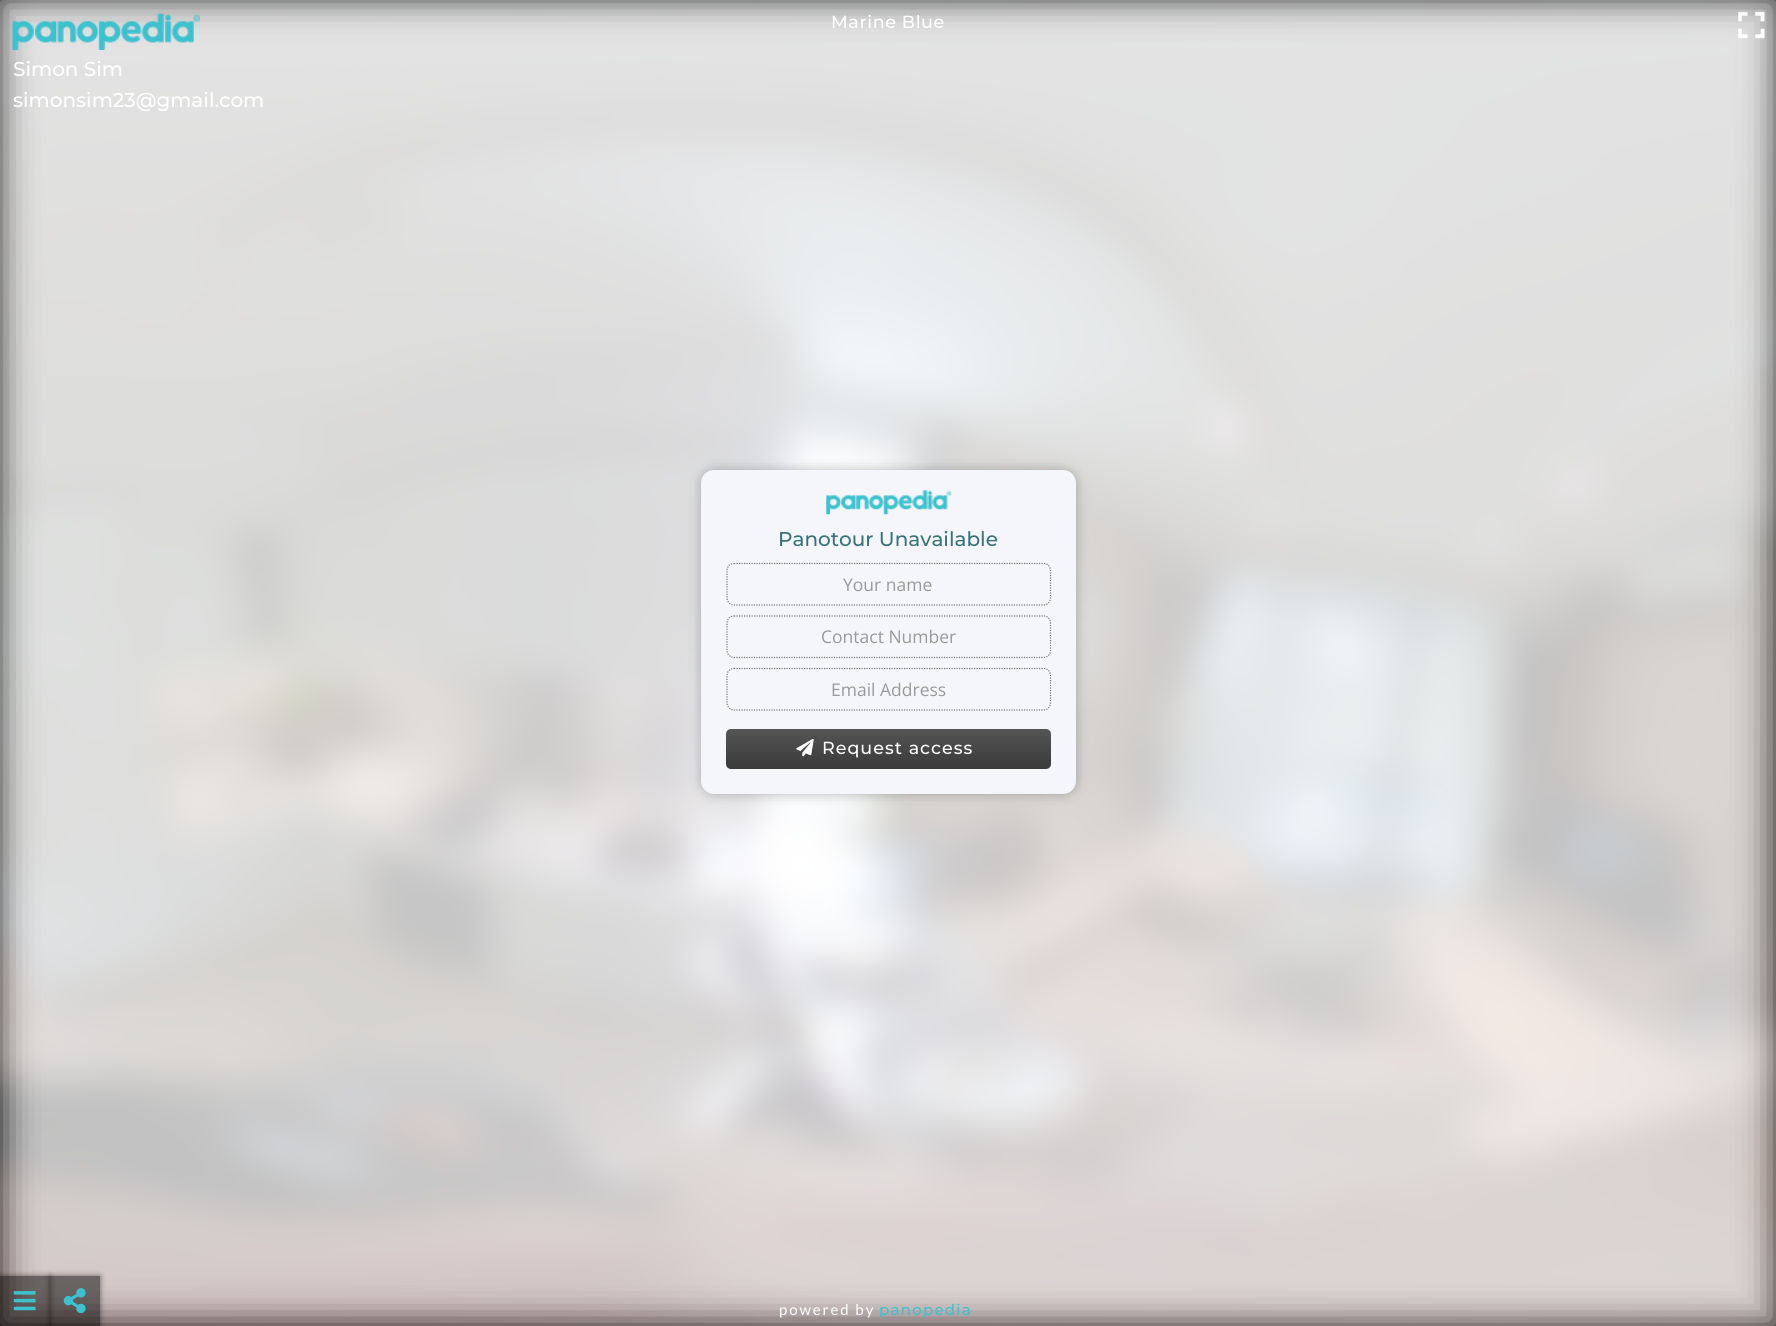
#include <cairo.h>
#include <math.h>
#include <stddef.h>

typedef struct { const char *family; double size; int italic, bold; unsigned color; } style_t;
static cairo_t *ctx;

static void ink(unsigned color) {
    cairo_set_source_rgb(ctx, (color >> 16) / 255.0, (color >> 8 & 255) / 255.0, (color & 255) / 255.0);
}

static void write(double x, double y, const char *s, const style_t *st) {
    cairo_select_font_face(ctx, st->family, st->italic ? CAIRO_FONT_SLANT_ITALIC : CAIRO_FONT_SLANT_NORMAL,
        st->bold ? CAIRO_FONT_WEIGHT_BOLD : CAIRO_FONT_WEIGHT_NORMAL);
    cairo_set_font_size(ctx, st->size);
    ink(st->color);
    cairo_move_to(ctx, x, y);
    cairo_show_text(ctx, s);
}

static void write_spaced(double x, double y, const char *s, double letter, double word) {
    cairo_move_to(ctx, x, y);
    while (*s) {
        char ch[5] = {0};
        int n = 0;
        do ch[n++] = *s++; while ((*s & 0xC0) == 0x80);
        cairo_show_text(ctx, ch);
        cairo_rel_move_to(ctx, letter + word * (*ch == ' '), 0);
    }
}

static void round_path(double x, double y, double w, double h, double r) {
    cairo_new_sub_path(ctx);
    cairo_arc(ctx, x + w - r, y + h - r, r, 0, M_PI / 2);
    cairo_arc(ctx, x + r, y + h - r, r, M_PI / 2, M_PI);
    cairo_arc(ctx, x + r, y + r, r, M_PI, 1.5 * M_PI);
    cairo_arc(ctx, x + w - r, y + r, r, 1.5 * M_PI, 2 * M_PI);
    cairo_close_path(ctx);
}

static void blur_box(double x, double y, double w, double h, double r, double blur, double alpha) {
    cairo_push_group_with_content(ctx, CAIRO_CONTENT_ALPHA);
    cairo_set_operator(ctx, CAIRO_OPERATOR_SOURCE);
    for (int i = 15; i >= -15 && fmin(w, h) + blur * i / 3 > 0; i -= 2) {
        double e = blur * i / 6;
        cairo_set_source_rgba(ctx, 0, 0, 0, alpha * erfc((i - 1) / 8.5) / 2);
        round_path(x - e, y - e, w + 2 * e, h + 2 * e, fmax(0, fmin(r + e + blur * .6, fmin(w, h) / 2 + e)));
        cairo_fill(ctx);
    }
    cairo_pattern_t *soft = cairo_pop_group(ctx);
    cairo_mask(ctx, soft);
    cairo_pattern_destroy(soft);
}

static void paste(const char *path, double x, double y, double w, double h) {
    cairo_surface_t *image = cairo_image_surface_create_from_png(path);
    cairo_save(ctx);
    cairo_set_source_surface(ctx, image, x, y);
    cairo_rectangle(ctx, x, y, w, h);
    cairo_fill(ctx);
    cairo_restore(ctx);
    cairo_surface_destroy(image);
}

static const style_t s1 = {"Montserrat Medium", 20, 0, 0, 0xffffff};
static const style_t s2 = {"Montserrat Medium", 20, 0, 0, 0x377379};
static const style_t s3 = {"Open Sans", 17.5, 0, 0, 0x999999};

int main(void) {
    cairo_surface_t *surface = cairo_image_surface_create(CAIRO_FORMAT_RGB24, 1776, 1326);
    ctx = cairo_create(surface);
    cairo_font_options_t *options = cairo_font_options_create();
    cairo_font_options_set_hint_metrics(options, CAIRO_HINT_METRICS_OFF);
    cairo_font_options_set_hint_style(options, CAIRO_HINT_STYLE_NONE);
    cairo_set_font_options(ctx, options);
    cairo_set_miter_limit(ctx, 4);
    cairo_pattern_t *gradient;
    ink(0x000000);
    cairo_paint(ctx);
    paste("pic1.png", 0, 0, 1776, 1326);
    ink(0xffffff);
    blur_box(0, 0, 1776, 1326, 0, 19, 0.75);
    cairo_select_font_face(ctx, "Montserrat Medium", CAIRO_FONT_SLANT_NORMAL, CAIRO_FONT_WEIGHT_NORMAL);
    cairo_set_font_size(ctx, 17.5);
    ink(0xffffff);
    write_spaced(831, 28, "Marine Blue", 0.6, 0);
    paste("pic2.png", 1738, 11, 27, 28);
    paste("pic3.png", 12, 13, 188, 37);
    write(13, 76, "Simon Sim", &s1);
    write(13, 107, "simonsim23@gmail.com", &s1);
    ink(0x000000);
    blur_box(701, 470, 375, 324, 13, 6, 0.25);
    ink(0xf5f6fb);
    round_path(701, 470, 375, 324, 13);
    cairo_fill(ctx);
    paste("pic4.png", 826, 490, 126, 25);
    write(778, 546, "Panotour Unavailable", &s2);
    cairo_new_path(ctx);
    cairo_move_to(ctx, 734, 563.5);
    cairo_line_to(ctx, 1044, 563.5);
    cairo_curve_to(ctx, 1047.5, 563.5, 1050.5, 566.5, 1050.5, 570.5);
    cairo_line_to(ctx, 1050.5, 598);
    cairo_curve_to(ctx, 1050.5, 601.5, 1047.5, 605, 1044, 605);
    cairo_line_to(ctx, 734, 605);
    cairo_curve_to(ctx, 730, 605, 727, 601.5, 727, 598);
    cairo_line_to(ctx, 727, 570.5);
    cairo_curve_to(ctx, 727, 566.5, 730, 563.5, 734, 563.5);
    cairo_close_path(ctx);
    ink(0x787878);
    cairo_set_line_width(ctx, 1.2);
    cairo_set_dash(ctx, (double[]){1.25, 1.25}, 2, 0);
    cairo_stroke(ctx);
    write(843, 591, "Your name", &s3);
    cairo_new_path(ctx);
    cairo_move_to(ctx, 734, 616);
    cairo_line_to(ctx, 1044, 616);
    cairo_curve_to(ctx, 1047.5, 616, 1050.5, 619, 1050.5, 623);
    cairo_line_to(ctx, 1050.5, 650.5);
    cairo_curve_to(ctx, 1050.5, 654, 1047.5, 657.5, 1044, 657.5);
    cairo_line_to(ctx, 734, 657.5);
    cairo_curve_to(ctx, 730, 657.5, 727, 654, 727, 650.5);
    cairo_line_to(ctx, 727, 623);
    cairo_curve_to(ctx, 727, 619, 730, 616, 734, 616);
    cairo_close_path(ctx);
    ink(0x787878);
    cairo_stroke(ctx);
    write(821, 643, "Contact Number", &s3);
    cairo_new_path(ctx);
    cairo_move_to(ctx, 734, 668.5);
    cairo_line_to(ctx, 1044, 668.5);
    cairo_curve_to(ctx, 1047.5, 668.5, 1050.5, 671.5, 1050.5, 675.5);
    cairo_line_to(ctx, 1050.5, 703);
    cairo_curve_to(ctx, 1050.5, 706.5, 1047.5, 710, 1044, 710);
    cairo_line_to(ctx, 734, 710);
    cairo_curve_to(ctx, 730, 710, 727, 706.5, 727, 703);
    cairo_line_to(ctx, 727, 675.5);
    cairo_curve_to(ctx, 727, 671.5, 730, 668.5, 734, 668.5);
    cairo_close_path(ctx);
    ink(0x787878);
    cairo_stroke(ctx);
    write(831, 696, "Email Address", &s3);
    gradient = cairo_pattern_create_linear(889, 769, 889, 729);
    cairo_pattern_add_color_stop_rgba(gradient, 0, 0.227, 0.227, 0.227, 1);
    cairo_pattern_add_color_stop_rgba(gradient, 1, 0.333, 0.333, 0.333, 1);
    cairo_set_source(ctx, gradient);
    cairo_pattern_destroy(gradient);
    round_path(726, 729, 325, 40, 5);
    cairo_fill(ctx);
    paste("pic5.png", 796, 738, 18, 19);
    cairo_select_font_face(ctx, "Montserrat Medium", CAIRO_FONT_SLANT_NORMAL, CAIRO_FONT_WEIGHT_NORMAL);
    ink(0xffffff);
    write_spaced(822, 754, "Request access", 1, 0);
    cairo_save(ctx);
    cairo_set_fill_rule(ctx, CAIRO_FILL_RULE_EVEN_ODD);
    cairo_new_path(ctx);
    cairo_move_to(ctx, 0, 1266);
    cairo_line_to(ctx, 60, 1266);
    cairo_line_to(ctx, 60, 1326);
    cairo_line_to(ctx, 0, 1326);
    cairo_close_path(ctx);
    cairo_move_to(ctx, 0, 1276);
    cairo_line_to(ctx, 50, 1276);
    cairo_line_to(ctx, 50, 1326);
    cairo_line_to(ctx, 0, 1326);
    cairo_close_path(ctx);
    cairo_clip(ctx);
    ink(0x000000);
    blur_box(0, 1276, 50, 50, 0, 3, 0.5);
    cairo_restore(ctx);
    cairo_set_source_rgba(ctx, 0, 0, 0, 0.5);
    cairo_rectangle(ctx, 0, 1276, 50, 50);
    cairo_fill(ctx);
    paste("pic6.png", 13, 1291, 23, 20);
    cairo_save(ctx);
    cairo_set_fill_rule(ctx, CAIRO_FILL_RULE_EVEN_ODD);
    cairo_new_path(ctx);
    cairo_move_to(ctx, 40, 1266);
    cairo_line_to(ctx, 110, 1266);
    cairo_line_to(ctx, 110, 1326);
    cairo_line_to(ctx, 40, 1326);
    cairo_close_path(ctx);
    cairo_move_to(ctx, 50, 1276);
    cairo_line_to(ctx, 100, 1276);
    cairo_line_to(ctx, 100, 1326);
    cairo_line_to(ctx, 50, 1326);
    cairo_close_path(ctx);
    cairo_clip(ctx);
    ink(0x000000);
    blur_box(50, 1276, 50, 50, 0, 3, 0.5);
    cairo_restore(ctx);
    cairo_rectangle(ctx, 50, 1276, 50, 50);
    cairo_fill(ctx);
    paste("pic7.png", 63, 1288, 23, 26);
    cairo_select_font_face(ctx, "Lato", CAIRO_FONT_SLANT_NORMAL, CAIRO_FONT_WEIGHT_NORMAL);
    cairo_set_font_size(ctx, 15);
    ink(0xffffff);
    write_spaced(779, 1315, "powered by", 1.9, 0);
    cairo_select_font_face(ctx, "Montserrat Medium", CAIRO_FONT_SLANT_NORMAL, CAIRO_FONT_WEIGHT_NORMAL);
    ink(0x3dc1ce);
    write_spaced(879, 1315, "panopedia", 1.25, 0);
    cairo_surface_write_to_png(surface, "screenshot.png");
    cairo_font_options_destroy(options);
    cairo_destroy(ctx);
    cairo_surface_destroy(surface);
    return 0;
}
